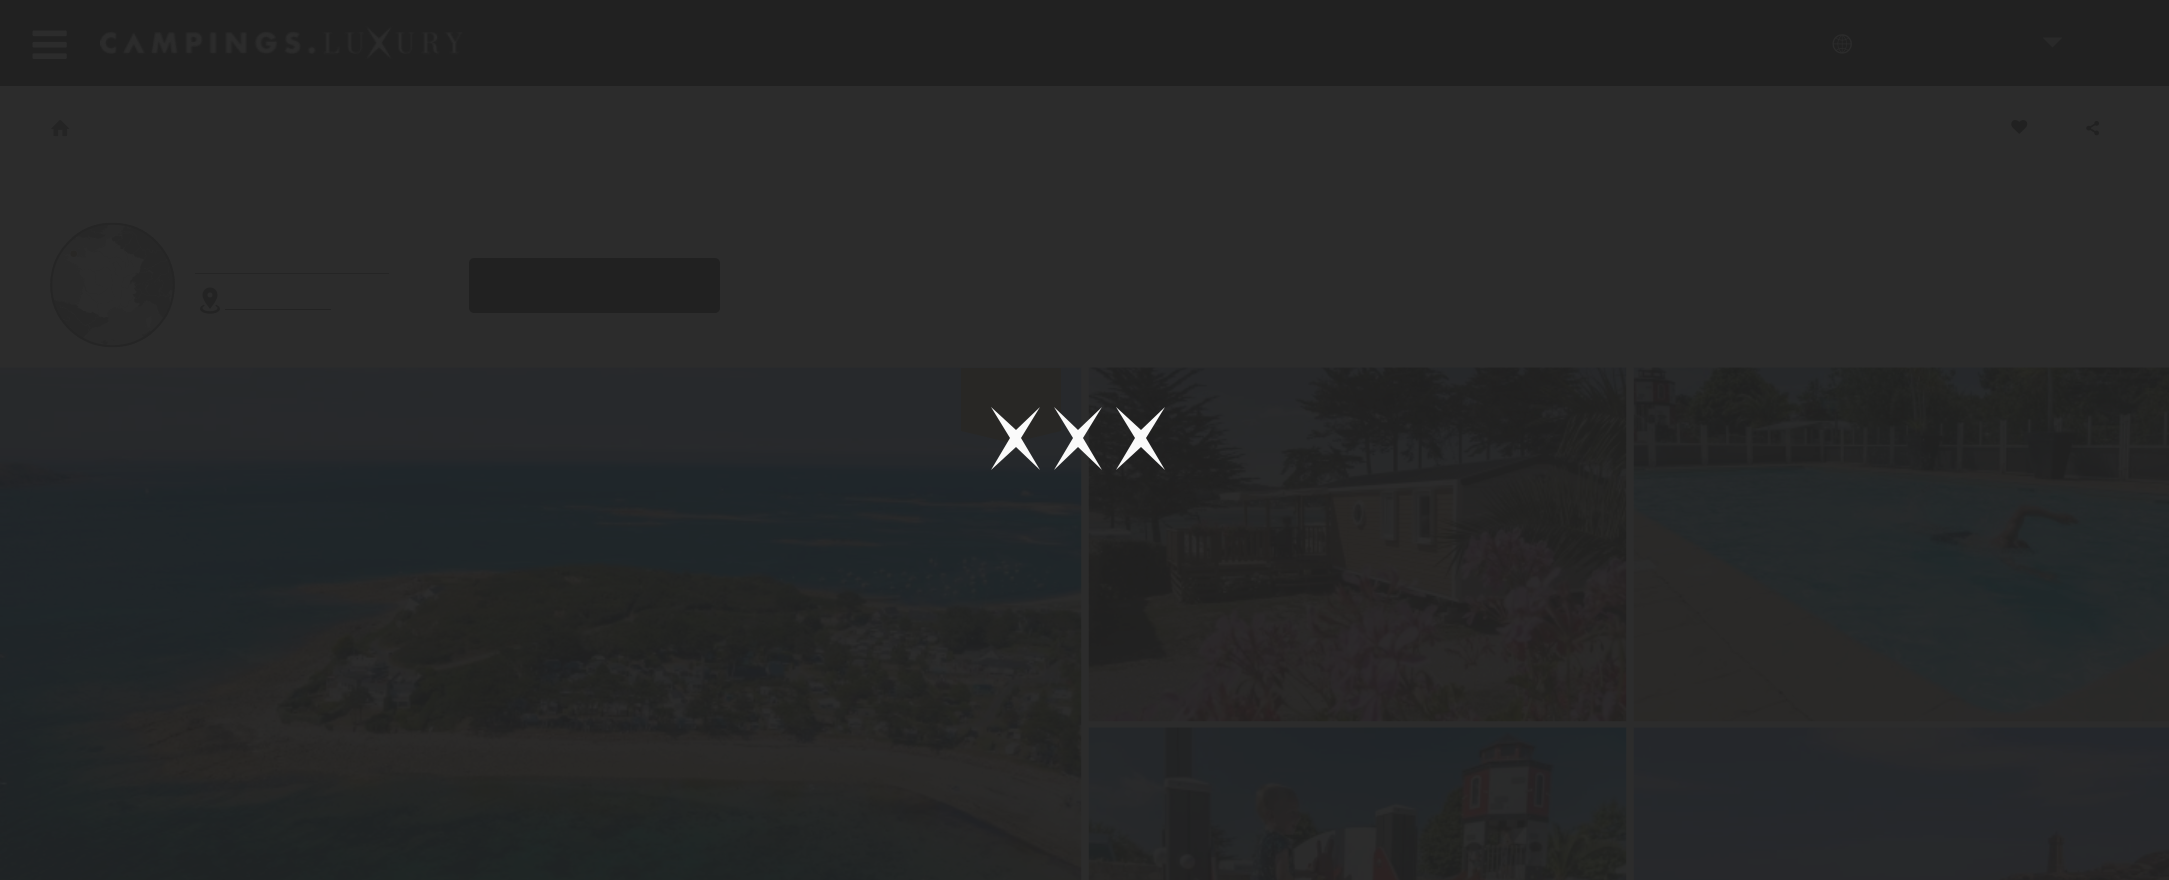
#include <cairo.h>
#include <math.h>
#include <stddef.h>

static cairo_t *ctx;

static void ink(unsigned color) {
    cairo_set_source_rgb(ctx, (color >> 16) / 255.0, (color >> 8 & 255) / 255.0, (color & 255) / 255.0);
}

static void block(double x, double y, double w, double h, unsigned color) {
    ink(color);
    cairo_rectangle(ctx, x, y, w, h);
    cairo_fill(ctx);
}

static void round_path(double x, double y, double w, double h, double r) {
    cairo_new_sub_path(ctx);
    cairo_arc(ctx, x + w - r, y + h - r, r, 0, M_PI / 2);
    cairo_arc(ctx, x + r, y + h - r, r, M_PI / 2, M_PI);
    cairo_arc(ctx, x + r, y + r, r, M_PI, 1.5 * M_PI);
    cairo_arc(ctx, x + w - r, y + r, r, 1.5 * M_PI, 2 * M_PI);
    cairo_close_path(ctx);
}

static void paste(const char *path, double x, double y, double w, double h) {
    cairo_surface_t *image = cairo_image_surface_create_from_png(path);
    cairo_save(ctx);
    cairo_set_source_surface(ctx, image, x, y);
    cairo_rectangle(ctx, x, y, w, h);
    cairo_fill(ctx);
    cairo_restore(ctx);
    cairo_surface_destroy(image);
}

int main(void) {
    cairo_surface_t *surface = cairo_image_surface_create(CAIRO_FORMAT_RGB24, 2169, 880);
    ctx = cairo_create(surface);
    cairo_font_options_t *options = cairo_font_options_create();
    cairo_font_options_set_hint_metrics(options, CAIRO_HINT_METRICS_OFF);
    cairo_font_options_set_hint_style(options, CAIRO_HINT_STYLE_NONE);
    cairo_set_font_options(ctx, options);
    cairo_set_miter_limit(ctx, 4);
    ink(0x2c2c2c);
    cairo_paint(ctx);
    block(0, 0, 2169, 86, 0x212121);
    paste("pic1.png", 32, 30, 35, 29);
    paste("pic2.png", 100, 26, 363, 33);
    paste("pic3.png", 1832, 34, 20, 20);
    ink(0x292929);
    cairo_new_path(ctx);
    cairo_move_to(ctx, 2042.5, 37.5);
    cairo_line_to(ctx, 2062.5, 37.5);
    cairo_line_to(ctx, 2052.5, 47.5);
    cairo_close_path(ctx);
    cairo_fill(ctx);
    paste("pic4.png", 51, 119, 19, 18);
    paste("pic5.png", 2011, 120, 17, 14);
    paste("pic6.png", 2086, 121, 13, 15);
    paste("pic7.png", 50, 222, 125, 126);
    block(195, 273, 194, 1, 0x252525);
    paste("pic8.png", 200, 287, 20, 27);
    block(225, 309, 106, 1, 0x232323);
    ink(0x212121);
    round_path(469, 258, 251, 55, 5);
    cairo_fill(ctx);
    paste("pic9.png", 0, 367, 1082, 513);
    cairo_save(ctx);
    cairo_rectangle(ctx, 0, 368, 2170, 512);
    cairo_clip(ctx);
    ink(0x282725);
    cairo_new_path(ctx);
    cairo_move_to(ctx, 1061, 431);
    cairo_line_to(ctx, 1011, 443);
    cairo_line_to(ctx, 961, 431);
    cairo_line_to(ctx, 961, 364);
    cairo_line_to(ctx, 1061, 364);
    cairo_close_path(ctx);
    cairo_fill(ctx);
    cairo_restore(ctx);
    paste("pic10.png", 1088, 367, 539, 355);
    paste("pic11.png", 1633, 367, 536, 355);
    paste("pic12.png", 1088, 727, 539, 153);
    paste("pic13.png", 1633, 727, 536, 153);
    ink(0xfafafa);
    cairo_new_path(ctx);
    cairo_move_to(ctx, 1040, 407);
    cairo_line_to(ctx, 1016, 430);
    cairo_line_to(ctx, 991, 407);
    cairo_line_to(ctx, 1010, 438);
    cairo_line_to(ctx, 991, 470);
    cairo_line_to(ctx, 1016, 447);
    cairo_line_to(ctx, 1040, 470);
    cairo_line_to(ctx, 1021, 438);
    cairo_close_path(ctx);
    cairo_fill(ctx);
    cairo_new_path(ctx);
    cairo_move_to(ctx, 1102, 407);
    cairo_line_to(ctx, 1078, 430);
    cairo_line_to(ctx, 1054, 407);
    cairo_line_to(ctx, 1073, 438);
    cairo_line_to(ctx, 1054, 470);
    cairo_line_to(ctx, 1078, 447);
    cairo_line_to(ctx, 1102, 470);
    cairo_line_to(ctx, 1083, 438);
    cairo_close_path(ctx);
    cairo_fill(ctx);
    cairo_new_path(ctx);
    cairo_move_to(ctx, 1165, 407);
    cairo_line_to(ctx, 1141, 430);
    cairo_line_to(ctx, 1116, 407);
    cairo_line_to(ctx, 1135, 438);
    cairo_line_to(ctx, 1116, 470);
    cairo_line_to(ctx, 1141, 447);
    cairo_line_to(ctx, 1165, 470);
    cairo_line_to(ctx, 1146, 438);
    cairo_close_path(ctx);
    cairo_fill(ctx);
    cairo_surface_write_to_png(surface, "screenshot.png");
    cairo_font_options_destroy(options);
    cairo_destroy(ctx);
    cairo_surface_destroy(surface);
    return 0;
}
